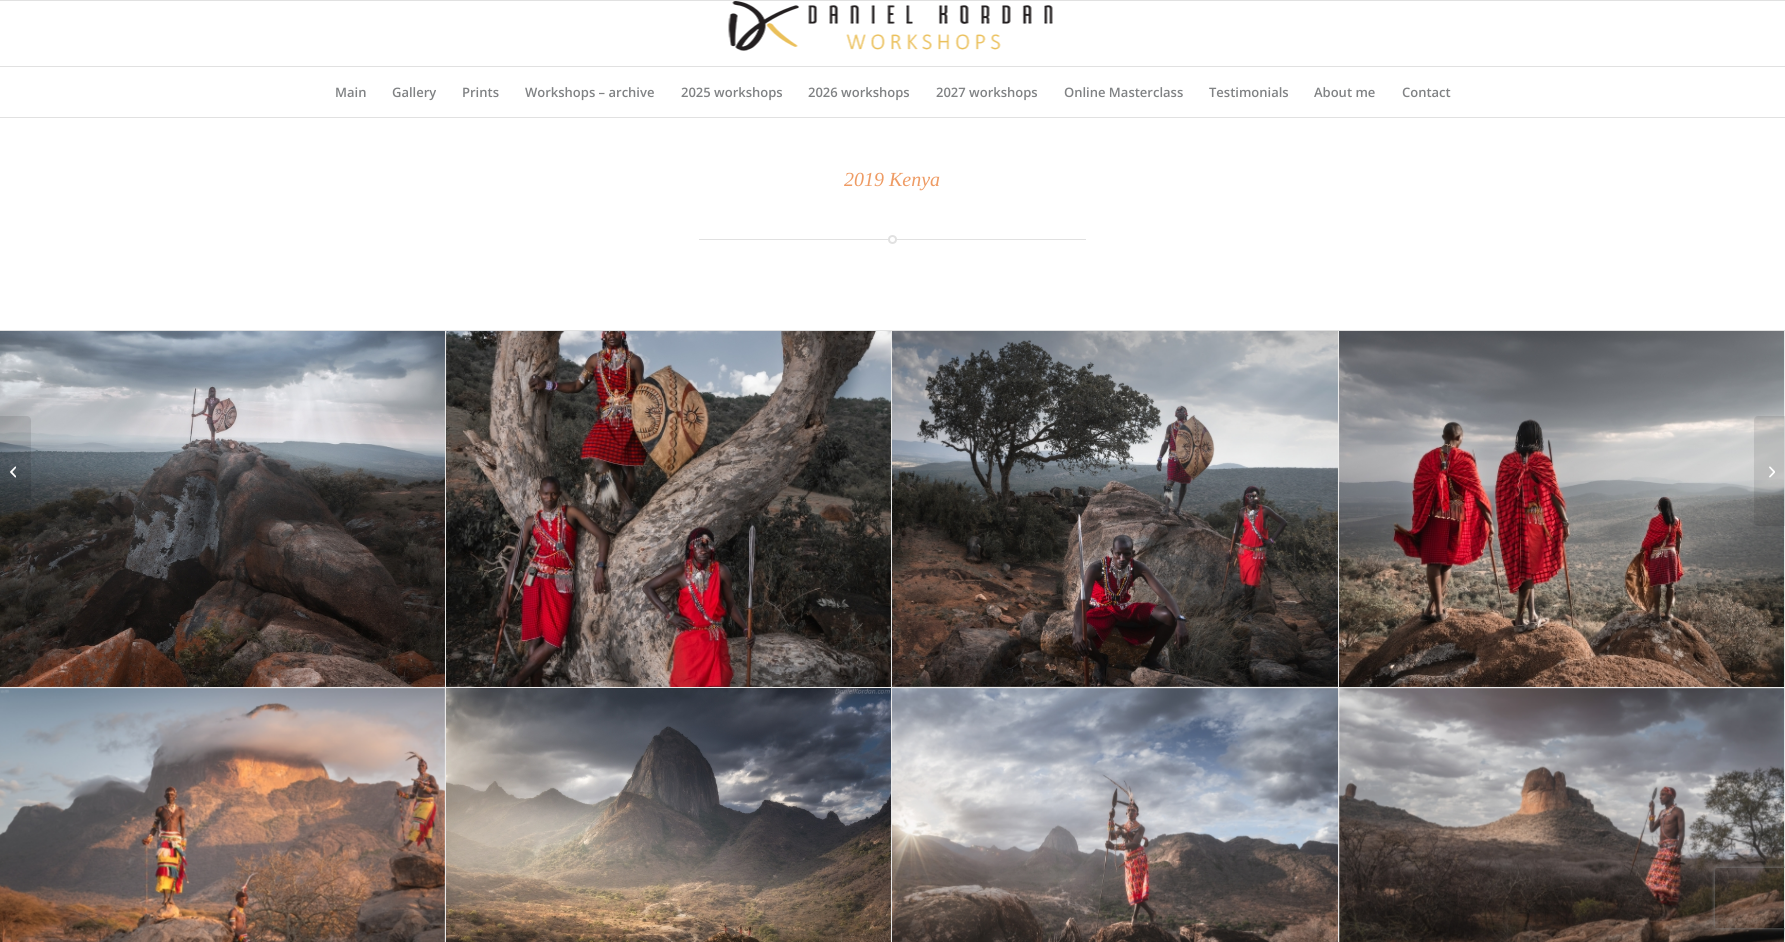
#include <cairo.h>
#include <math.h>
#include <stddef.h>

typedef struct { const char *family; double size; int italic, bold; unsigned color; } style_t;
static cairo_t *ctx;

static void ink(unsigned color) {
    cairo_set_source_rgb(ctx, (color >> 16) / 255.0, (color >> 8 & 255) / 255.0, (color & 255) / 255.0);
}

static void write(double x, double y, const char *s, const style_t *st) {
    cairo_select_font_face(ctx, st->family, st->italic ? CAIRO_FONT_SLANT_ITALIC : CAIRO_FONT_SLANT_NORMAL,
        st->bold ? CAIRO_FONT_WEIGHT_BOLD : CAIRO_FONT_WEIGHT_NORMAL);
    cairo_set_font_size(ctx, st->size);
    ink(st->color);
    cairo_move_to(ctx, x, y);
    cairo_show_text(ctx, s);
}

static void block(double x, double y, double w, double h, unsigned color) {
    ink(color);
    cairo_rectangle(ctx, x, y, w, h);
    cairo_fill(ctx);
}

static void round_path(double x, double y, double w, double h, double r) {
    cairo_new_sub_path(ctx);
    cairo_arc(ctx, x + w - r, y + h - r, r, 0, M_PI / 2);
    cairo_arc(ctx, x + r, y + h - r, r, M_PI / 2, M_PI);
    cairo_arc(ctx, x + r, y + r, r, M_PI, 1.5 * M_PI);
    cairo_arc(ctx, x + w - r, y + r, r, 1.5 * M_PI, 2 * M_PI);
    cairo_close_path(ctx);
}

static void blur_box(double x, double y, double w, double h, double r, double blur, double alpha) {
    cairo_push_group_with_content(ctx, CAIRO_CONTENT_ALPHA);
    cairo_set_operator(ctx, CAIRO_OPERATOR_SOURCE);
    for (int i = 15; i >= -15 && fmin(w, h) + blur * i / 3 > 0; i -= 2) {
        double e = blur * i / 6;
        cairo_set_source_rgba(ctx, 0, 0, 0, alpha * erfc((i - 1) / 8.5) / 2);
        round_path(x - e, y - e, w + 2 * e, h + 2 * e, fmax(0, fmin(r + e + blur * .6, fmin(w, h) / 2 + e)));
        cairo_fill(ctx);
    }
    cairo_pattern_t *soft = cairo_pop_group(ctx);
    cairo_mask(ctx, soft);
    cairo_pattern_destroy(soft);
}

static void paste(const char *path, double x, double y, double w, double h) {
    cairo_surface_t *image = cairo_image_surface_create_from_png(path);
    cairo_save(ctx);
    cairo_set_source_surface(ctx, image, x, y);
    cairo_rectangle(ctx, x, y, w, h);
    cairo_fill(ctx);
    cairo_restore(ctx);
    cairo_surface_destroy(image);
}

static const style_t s1 = {"Open Sans SemiBold", 13, 0, 0, 0x808284};
static const style_t s2 = {"Liberation Serif", 20, 1, 0, 0xee9b64};

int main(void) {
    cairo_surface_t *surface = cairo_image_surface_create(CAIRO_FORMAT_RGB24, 1785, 942);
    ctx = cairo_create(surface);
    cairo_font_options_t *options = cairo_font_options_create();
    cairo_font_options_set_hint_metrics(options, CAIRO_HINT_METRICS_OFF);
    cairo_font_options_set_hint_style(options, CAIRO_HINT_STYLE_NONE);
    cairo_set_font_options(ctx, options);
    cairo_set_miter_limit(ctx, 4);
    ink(0xffffff);
    cairo_paint(ctx);
    block(0, 0, 1785, 1, 0xe1e1e1);
    block(0, 117, 1785, 1, 0xe1e1e1);
    paste("pic1.png", 728, 1, 325, 50);
    block(0, 66, 1785, 1, 0xe1e1e1);
    write(335, 97, "Main", &s1);
    write(392, 97, "Gallery", &s1);
    write(462, 97, "Prints", &s1);
    write(525, 97, "Workshops – archive", &s1);
    write(681, 97, "2025 workshops", &s1);
    write(808, 97, "2026 workshops", &s1);
    write(936, 97, "2027 workshops", &s1);
    write(1064, 97, "Online Masterclass", &s1);
    write(1209, 97, "Testimonials", &s1);
    write(1314, 97, "About me", &s1);
    write(1402, 97, "Contact", &s1);
    write(844, 186, "2019 Kenya", &s2);
    block(699, 239, 387, 1, 0xe1e1e1);
    ink(0xffffff);
    cairo_new_path(ctx);
    cairo_arc(ctx, 892.5, 239.5, 3.5, 0, 2 * M_PI);
    cairo_fill_preserve(ctx);
    ink(0xe1e1e1);
    cairo_stroke(ctx);
    block(0, 330, 1785, 1, 0xe1e1e1);
    block(0, 331, 1785, 611, 0xebebeb);
    paste("pic2.png", 0, 331, 445, 356);
    paste("pic3.png", 446, 331, 445, 356);
    paste("pic4.png", 892, 331, 446, 356);
    paste("pic5.png", 1339, 331, 445, 356);
    paste("pic6.png", 0, 688, 445, 254);
    paste("pic7.png", 446, 688, 445, 254);
    paste("pic8.png", 892, 688, 446, 254);
    block(1339, 688, 445, 254, 0xffffff);
    paste("pic9.png", 1339, 688, 445, 254);
    cairo_set_source_rgba(ctx, 0, 0, 0, 0.1);
    cairo_new_path(ctx);
    cairo_move_to(ctx, 0, 416);
    cairo_line_to(ctx, 27, 416);
    cairo_curve_to(ctx, 29, 416, 31, 418, 31, 420);
    cairo_line_to(ctx, 31, 522);
    cairo_curve_to(ctx, 31, 524, 29, 526, 27, 526);
    cairo_line_to(ctx, 0, 526);
    cairo_close_path(ctx);
    cairo_fill(ctx);
    paste("pic10.png", 10, 466, 6, 12);
    cairo_new_path(ctx);
    cairo_move_to(ctx, 1758, 416);
    cairo_line_to(ctx, 1785, 416);
    cairo_line_to(ctx, 1785, 526);
    cairo_line_to(ctx, 1758, 526);
    cairo_curve_to(ctx, 1756, 526, 1754, 524, 1754, 522);
    cairo_line_to(ctx, 1754, 420);
    cairo_curve_to(ctx, 1754, 418, 1756, 416, 1758, 416);
    cairo_close_path(ctx);
    cairo_fill(ctx);
    paste("pic11.png", 1769, 466, 6, 12);
    cairo_save(ctx);
    cairo_set_fill_rule(ctx, CAIRO_FILL_RULE_EVEN_ODD);
    cairo_new_path(ctx);
    cairo_move_to(ctx, 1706, 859);
    cairo_line_to(ctx, 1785, 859);
    cairo_line_to(ctx, 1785, 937);
    cairo_line_to(ctx, 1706, 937);
    cairo_close_path(ctx);
    cairo_move_to(ctx, 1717, 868);
    cairo_line_to(ctx, 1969, 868);
    cairo_curve_to(ctx, 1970, 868, 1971, 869, 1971, 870);
    cairo_line_to(ctx, 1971, 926);
    cairo_curve_to(ctx, 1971, 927, 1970, 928, 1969, 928);
    cairo_line_to(ctx, 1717, 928);
    cairo_curve_to(ctx, 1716, 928, 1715, 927, 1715, 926);
    cairo_line_to(ctx, 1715, 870);
    cairo_curve_to(ctx, 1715, 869, 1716, 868, 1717, 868);
    cairo_close_path(ctx);
    cairo_clip(ctx);
    ink(0x808080);
    blur_box(1715, 868, 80, 60, 2, 2.5, 1);
    cairo_restore(ctx);
    cairo_surface_write_to_png(surface, "screenshot.png");
    cairo_font_options_destroy(options);
    cairo_destroy(ctx);
    cairo_surface_destroy(surface);
    return 0;
}
